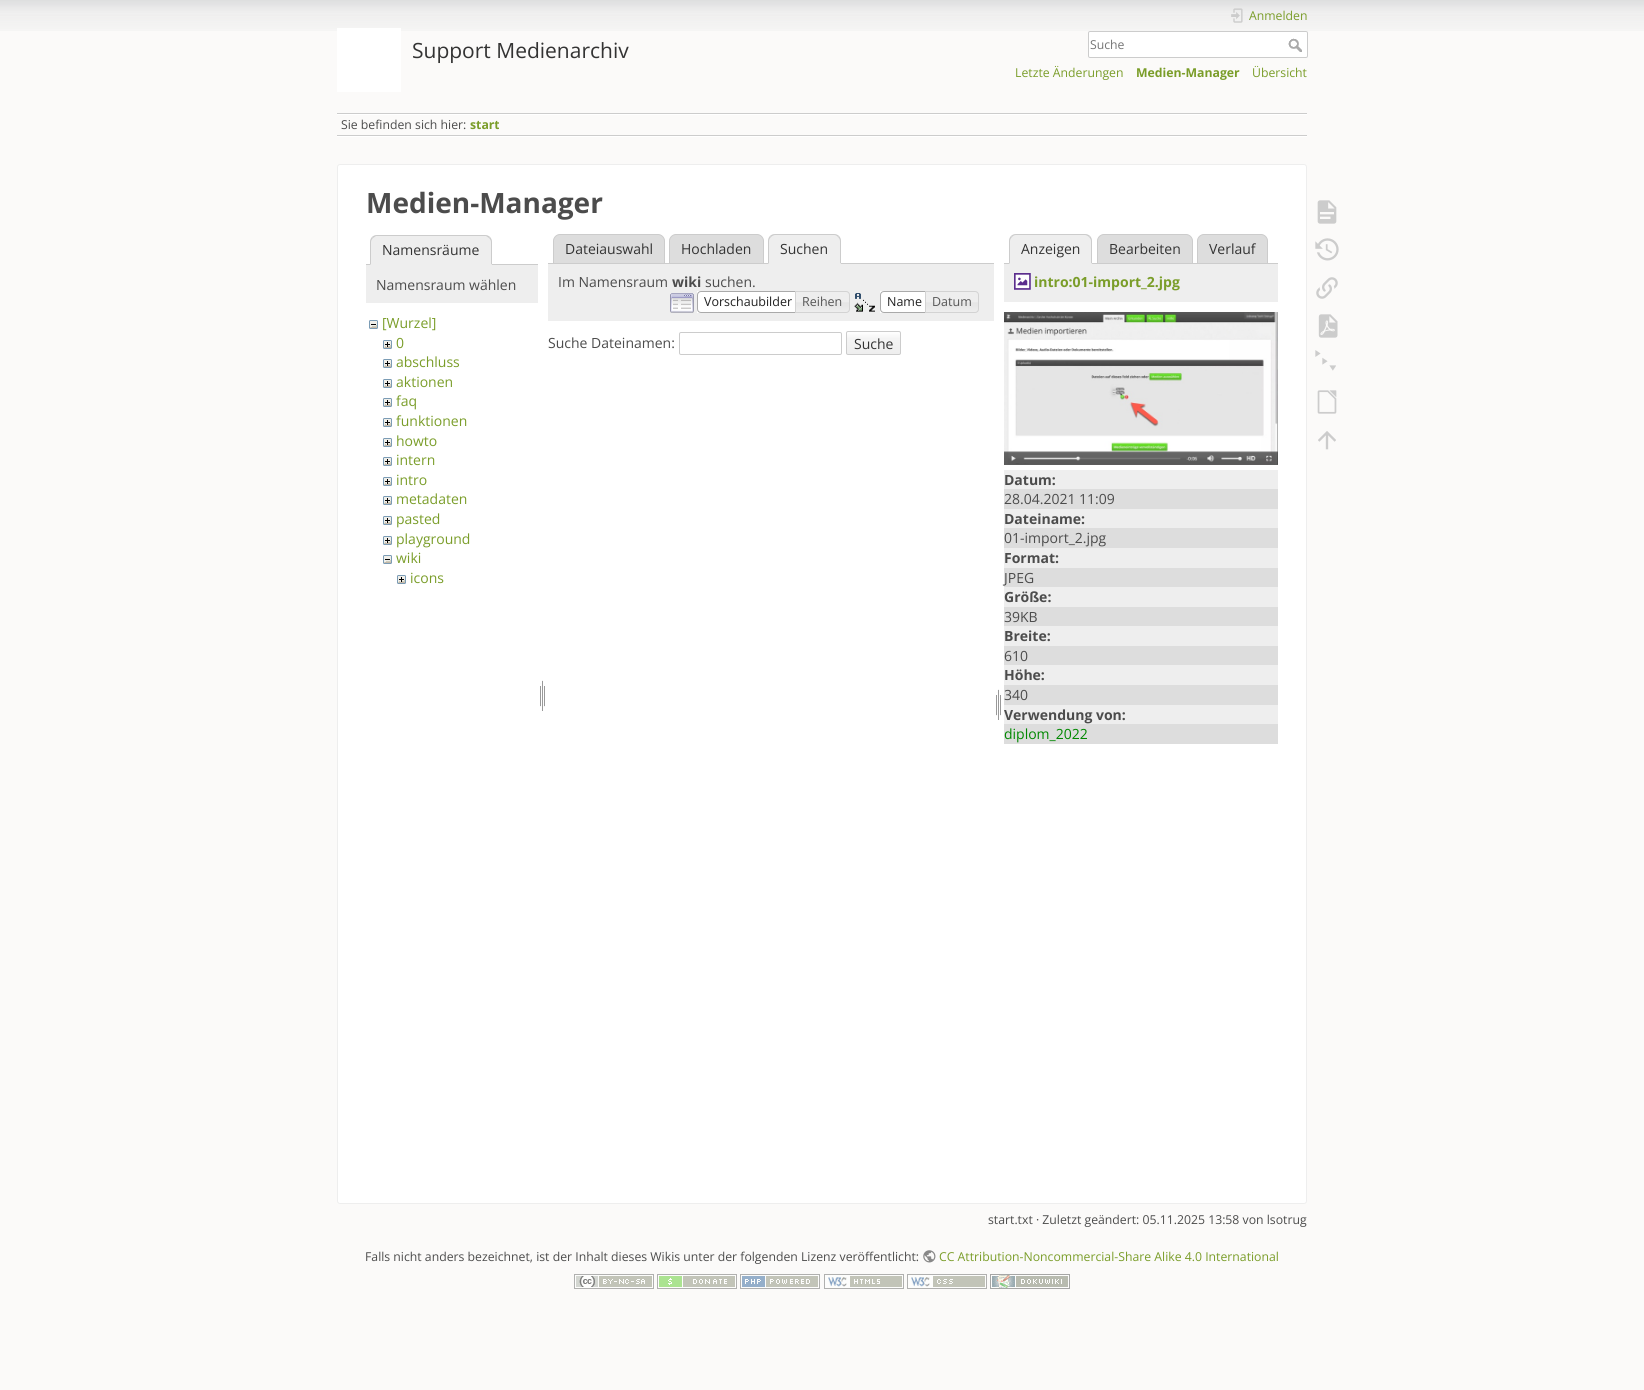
#include <cairo.h>
#include <math.h>
#include <stddef.h>

typedef struct { const char *family; double size; int italic, bold; unsigned color; } style_t;
static cairo_t *ctx;

static void ink(unsigned color) {
    cairo_set_source_rgb(ctx, (color >> 16) / 255.0, (color >> 8 & 255) / 255.0, (color & 255) / 255.0);
}

static void write(double x, double y, const char *s, const style_t *st) {
    cairo_select_font_face(ctx, st->family, st->italic ? CAIRO_FONT_SLANT_ITALIC : CAIRO_FONT_SLANT_NORMAL,
        st->bold ? CAIRO_FONT_WEIGHT_BOLD : CAIRO_FONT_WEIGHT_NORMAL);
    cairo_set_font_size(ctx, st->size);
    ink(st->color);
    cairo_move_to(ctx, x, y);
    cairo_show_text(ctx, s);
}

static void block(double x, double y, double w, double h, unsigned color) {
    ink(color);
    cairo_rectangle(ctx, x, y, w, h);
    cairo_fill(ctx);
}

static void round_path(double x, double y, double w, double h, double r) {
    cairo_new_sub_path(ctx);
    cairo_arc(ctx, x + w - r, y + h - r, r, 0, M_PI / 2);
    cairo_arc(ctx, x + r, y + h - r, r, M_PI / 2, M_PI);
    cairo_arc(ctx, x + r, y + r, r, M_PI, 1.5 * M_PI);
    cairo_arc(ctx, x + w - r, y + r, r, 1.5 * M_PI, 2 * M_PI);
    cairo_close_path(ctx);
}

static void paste(const char *path, double x, double y, double w, double h) {
    cairo_surface_t *image = cairo_image_surface_create_from_png(path);
    cairo_save(ctx);
    cairo_set_source_surface(ctx, image, x, y);
    cairo_rectangle(ctx, x, y, w, h);
    cairo_fill(ctx);
    cairo_restore(ctx);
    cairo_surface_destroy(image);
}

static const style_t s1 = {"Open Sans", 21, 0, 0, 0x333333};
static const style_t s2 = {"Open Sans", 12.25, 0, 0, 0x7a9d29};
static const style_t s3 = {"Open Sans", 12.25, 0, 0, 0x757575};
static const style_t s4 = {"Open Sans", 12.25, 0, 1, 0x7a9d29};
static const style_t s5 = {"Open Sans", 12.25, 0, 0, 0x4c4c4c};
static const style_t s6 = {"Open Sans", 28, 0, 1, 0x4c4c4c};
static const style_t s7 = {"Open Sans", 14, 0, 0, 0x333333};
static const style_t s8 = {"Open Sans", 14, 0, 0, 0x4c4c4c};
static const style_t s9 = {"Open Sans", 14, 0, 0, 0x7a9d29};
static const style_t s10 = {"Open Sans", 14, 0, 1, 0x4c4c4c};
static const style_t s11 = {"Open Sans", 12.5, 0, 0, 0x212121};
static const style_t s12 = {"Open Sans", 12.5, 0, 0, 0x555555};
static const style_t s13 = {"Open Sans", 14, 0, 1, 0x7a9d29};
static const style_t s14 = {"Open Sans", 14, 0, 0, 0x008800};

int main(void) {
    cairo_surface_t *surface = cairo_image_surface_create(CAIRO_FORMAT_RGB24, 1644, 1390);
    ctx = cairo_create(surface);
    cairo_font_options_t *options = cairo_font_options_create();
    cairo_font_options_set_hint_metrics(options, CAIRO_HINT_METRICS_OFF);
    cairo_font_options_set_hint_style(options, CAIRO_HINT_STYLE_NONE);
    cairo_set_font_options(ctx, options);
    cairo_set_miter_limit(ctx, 4);
    cairo_pattern_t *gradient;
    ink(0xfbfaf9);
    cairo_paint(ctx);
    paste("pic1.png", 0, 0, 1644, 31);
    block(337, 28, 64, 64, 0xffffff);
    write(412, 58, "Support Medienarchiv", &s1);
    paste("pic2.png", 1231, 8, 12, 15);
    write(1249, 20, "Anmelden", &s2);
    ink(0xffffff);
    round_path(1088.5, 31.5, 219, 26, 1.5);
    cairo_fill_preserve(ctx);
    ink(0xcccccc);
    cairo_set_line_width(ctx, 1);
    cairo_stroke(ctx);
    write(1090, 49, "Suche", &s3);
    paste("pic3.png", 1288, 38, 14, 14);
    write(1015, 77, "Letzte Änderungen", &s2);
    write(1136, 77, "Medien-Manager", &s4);
    write(1252, 77, "Übersicht", &s2);
    block(337, 113, 970, 1, 0xcccccc);
    block(337, 136, 970, 1, 0xffffff);
    block(337, 114, 970, 1, 0xffffff);
    block(337, 135, 970, 1, 0xcccccc);
    write(341, 129, "Sie befinden sich hier:", &s5);
    write(470, 129, "start", &s4);
    ink(0xffffff);
    round_path(337.5, 164.5, 969, 1039, 2.5);
    cairo_fill_preserve(ctx);
    ink(0xeeeeee);
    cairo_stroke(ctx);
    write(366, 213, "Medien-Manager", &s6);
    block(366, 264, 172, 1, 0xcccccc);
    ink(0xeeeeee);
    cairo_new_path(ctx);
    cairo_move_to(ctx, 377, 235);
    cairo_line_to(ctx, 485, 235);
    cairo_curve_to(ctx, 489, 235, 492, 238, 492, 242);
    cairo_line_to(ctx, 492, 265);
    cairo_line_to(ctx, 370, 265);
    cairo_line_to(ctx, 370, 242);
    cairo_curve_to(ctx, 370, 238, 373, 235, 377, 235);
    cairo_close_path(ctx);
    cairo_fill(ctx);
    ink(0xcccccc);
    cairo_new_path(ctx);
    cairo_move_to(ctx, 377, 235);
    cairo_curve_to(ctx, 375, 235, 373, 236, 372, 237);
    cairo_line_to(ctx, 373, 238);
    cairo_line_to(ctx, 376, 236);
    cairo_line_to(ctx, 486, 236);
    cairo_line_to(ctx, 489, 238);
    cairo_line_to(ctx, 490, 237);
    cairo_curve_to(ctx, 489, 236, 487, 235, 485, 235);
    cairo_close_path(ctx);
    cairo_fill(ctx);
    cairo_new_path(ctx);
    cairo_move_to(ctx, 492, 265);
    cairo_line_to(ctx, 492, 242);
    cairo_curve_to(ctx, 492, 240, 491, 238, 490, 237);
    cairo_line_to(ctx, 489, 238);
    cairo_curve_to(ctx, 490, 239, 491, 240.5, 491, 242);
    cairo_line_to(ctx, 491, 264);
    cairo_close_path(ctx);
    cairo_fill(ctx);
    ink(0xeeeeee);
    cairo_new_path(ctx);
    cairo_move_to(ctx, 492, 265);
    cairo_line_to(ctx, 491, 264);
    cairo_line_to(ctx, 371, 264);
    cairo_line_to(ctx, 370, 265);
    cairo_close_path(ctx);
    cairo_fill(ctx);
    ink(0xcccccc);
    cairo_new_path(ctx);
    cairo_move_to(ctx, 370, 265);
    cairo_line_to(ctx, 371, 264);
    cairo_line_to(ctx, 371, 242);
    cairo_curve_to(ctx, 371, 240.5, 372, 239, 373, 238);
    cairo_line_to(ctx, 372, 237);
    cairo_curve_to(ctx, 371, 238, 370, 240, 370, 242);
    cairo_close_path(ctx);
    cairo_fill(ctx);
    write(382, 255, "Namensräume", &s7);
    block(366, 265, 172, 38, 0xeeeeee);
    write(376, 290, "Namensraum wählen", &s8);
    paste("pic4.png", 369, 320, 9, 9);
    write(382, 328, "[Wurzel]", &s9);
    paste("pic5.png", 383, 340, 9, 9);
    write(396, 348, "0", &s9);
    paste("pic5.png", 383, 359, 9, 9);
    write(396, 367, "abschluss", &s9);
    paste("pic5.png", 383, 379, 9, 9);
    write(396, 387, "aktionen", &s9);
    paste("pic5.png", 383, 398, 9, 9);
    write(396, 406, "faq", &s9);
    paste("pic5.png", 383, 418, 9, 9);
    write(396, 426, "funktionen", &s9);
    paste("pic5.png", 383, 438, 9, 9);
    write(396, 446, "howto", &s9);
    paste("pic5.png", 383, 457, 9, 9);
    write(396, 465, "intern", &s9);
    paste("pic5.png", 383, 477, 9, 9);
    write(396, 485, "intro", &s9);
    paste("pic5.png", 383, 496, 9, 9);
    write(396, 504, "metadaten", &s9);
    paste("pic5.png", 383, 516, 9, 9);
    write(396, 524, "pasted", &s9);
    paste("pic5.png", 383, 536, 9, 9);
    write(396, 544, "playground", &s9);
    paste("pic4.png", 383, 555, 9, 9);
    write(396, 563, "wiki", &s9);
    paste("pic5.png", 397, 575, 9, 9);
    write(410, 583, "icons", &s9);
    paste("pic6.png", 540, 680, 5, 31);
    ink(0xdddddd);
    cairo_new_path(ctx);
    cairo_move_to(ctx, 560, 234.5);
    cairo_line_to(ctx, 658, 234.5);
    cairo_curve_to(ctx, 661.5, 234.5, 664.5, 237.5, 664.5, 241);
    cairo_line_to(ctx, 664.5, 263.5);
    cairo_line_to(ctx, 553.5, 263.5);
    cairo_line_to(ctx, 553.5, 241);
    cairo_curve_to(ctx, 553.5, 237.5, 556.5, 234.5, 560, 234.5);
    cairo_close_path(ctx);
    cairo_fill_preserve(ctx);
    ink(0xcccccc);
    cairo_stroke(ctx);
    write(565, 254, "Dateiauswahl", &s7);
    ink(0xdddddd);
    cairo_new_path(ctx);
    cairo_move_to(ctx, 676, 234.5);
    cairo_line_to(ctx, 757, 234.5);
    cairo_curve_to(ctx, 760.5, 234.5, 763.5, 237.5, 763.5, 241);
    cairo_line_to(ctx, 763.5, 263.5);
    cairo_line_to(ctx, 669.5, 263.5);
    cairo_line_to(ctx, 669.5, 241);
    cairo_curve_to(ctx, 669.5, 237.5, 672.5, 234.5, 676, 234.5);
    cairo_close_path(ctx);
    cairo_fill_preserve(ctx);
    ink(0xcccccc);
    cairo_stroke(ctx);
    write(681, 254, "Hochladen", &s7);
    block(548, 263, 446, 1, 0xcccccc);
    ink(0xeeeeee);
    cairo_new_path(ctx);
    cairo_move_to(ctx, 775, 234);
    cairo_line_to(ctx, 834, 234);
    cairo_curve_to(ctx, 838, 234, 841, 237, 841, 241);
    cairo_line_to(ctx, 841, 264);
    cairo_line_to(ctx, 768, 264);
    cairo_line_to(ctx, 768, 241);
    cairo_curve_to(ctx, 768, 237, 771, 234, 775, 234);
    cairo_close_path(ctx);
    cairo_fill(ctx);
    ink(0xcccccc);
    cairo_new_path(ctx);
    cairo_move_to(ctx, 775, 234);
    cairo_curve_to(ctx, 773, 234, 771, 235, 770, 236);
    cairo_line_to(ctx, 771, 237);
    cairo_curve_to(ctx, 772, 236, 774, 235, 775, 235);
    cairo_line_to(ctx, 834, 235);
    cairo_curve_to(ctx, 836, 235, 837, 236, 838, 237);
    cairo_line_to(ctx, 839, 236);
    cairo_curve_to(ctx, 838, 235, 836, 234, 834, 234);
    cairo_close_path(ctx);
    cairo_fill(ctx);
    cairo_new_path(ctx);
    cairo_move_to(ctx, 841, 264);
    cairo_line_to(ctx, 841, 241);
    cairo_curve_to(ctx, 841, 239, 840, 237, 839, 236);
    cairo_line_to(ctx, 838, 237);
    cairo_curve_to(ctx, 839, 238, 840, 239.5, 840, 241);
    cairo_line_to(ctx, 840, 263);
    cairo_close_path(ctx);
    cairo_fill(ctx);
    ink(0xeeeeee);
    cairo_new_path(ctx);
    cairo_move_to(ctx, 841, 264);
    cairo_line_to(ctx, 840, 263);
    cairo_line_to(ctx, 769, 263);
    cairo_line_to(ctx, 768, 264);
    cairo_close_path(ctx);
    cairo_fill(ctx);
    ink(0xcccccc);
    cairo_new_path(ctx);
    cairo_move_to(ctx, 768, 264);
    cairo_line_to(ctx, 769, 263);
    cairo_line_to(ctx, 769, 241);
    cairo_curve_to(ctx, 769, 239.5, 770, 238, 771, 237);
    cairo_line_to(ctx, 770, 236);
    cairo_curve_to(ctx, 769, 237, 768, 239, 768, 241);
    cairo_close_path(ctx);
    cairo_fill(ctx);
    write(780, 254, "Suchen", &s7);
    block(548, 264, 446, 57, 0xeeeeee);
    write(558, 287, "Im Namensraum", &s8);
    write(672, 287, "wiki", &s10);
    write(705, 287, "suchen.", &s8);
    paste("pic7.png", 670, 293, 24, 20);
    block(697, 291, 98, 22, 0xffffff);
    cairo_new_path(ctx);
    cairo_move_to(ctx, 701, 291.5);
    cairo_line_to(ctx, 799.5, 291.5);
    cairo_line_to(ctx, 799.5, 312.5);
    cairo_line_to(ctx, 701, 312.5);
    cairo_curve_to(ctx, 699, 312.5, 697.5, 311, 697.5, 309);
    cairo_line_to(ctx, 697.5, 295);
    cairo_curve_to(ctx, 697.5, 293, 699, 291.5, 701, 291.5);
    cairo_close_path(ctx);
    ink(0xaaaaaa);
    cairo_stroke(ctx);
    write(704, 306, "Vorschaubilder", &s11);
    paste("pic8.png", 796, 291, 54, 22);
    cairo_new_path(ctx);
    cairo_move_to(ctx, 795.5, 291.5);
    cairo_line_to(ctx, 846, 291.5);
    cairo_curve_to(ctx, 848, 291.5, 849.5, 293, 849.5, 295);
    cairo_line_to(ctx, 849.5, 309);
    cairo_curve_to(ctx, 849.5, 311, 848, 312.5, 846, 312.5);
    cairo_line_to(ctx, 795.5, 312.5);
    cairo_close_path(ctx);
    ink(0xd3d3d3);
    cairo_stroke(ctx);
    write(802, 306, "Reihen", &s12);
    paste("pic9.png", 854, 293, 21, 19);
    block(880, 291, 45, 22, 0xffffff);
    cairo_new_path(ctx);
    cairo_move_to(ctx, 884, 291.5);
    cairo_line_to(ctx, 929.5, 291.5);
    cairo_line_to(ctx, 929.5, 312.5);
    cairo_line_to(ctx, 884, 312.5);
    cairo_curve_to(ctx, 882, 312.5, 880.5, 311, 880.5, 309);
    cairo_line_to(ctx, 880.5, 295);
    cairo_curve_to(ctx, 880.5, 293, 882, 291.5, 884, 291.5);
    cairo_close_path(ctx);
    ink(0xaaaaaa);
    cairo_stroke(ctx);
    write(887, 306, "Name", &s11);
    paste("pic10.png", 926, 291, 53, 22);
    cairo_new_path(ctx);
    cairo_move_to(ctx, 925.5, 291.5);
    cairo_line_to(ctx, 975, 291.5);
    cairo_curve_to(ctx, 977, 291.5, 978.5, 293, 978.5, 295);
    cairo_line_to(ctx, 978.5, 309);
    cairo_curve_to(ctx, 978.5, 311, 977, 312.5, 975, 312.5);
    cairo_line_to(ctx, 925.5, 312.5);
    cairo_close_path(ctx);
    ink(0xd3d3d3);
    cairo_stroke(ctx);
    write(932, 306, "Datum", &s12);
    write(548, 348, "Suche Dateinamen:", &s8);
    round_path(679.5, 332.5, 162, 22, 1.5);
    ink(0xcccccc);
    cairo_stroke(ctx);
    cairo_save(ctx);
    round_path(846, 331, 55, 24, 2);
    cairo_clip(ctx);
    gradient = cairo_pattern_create_linear(874, 332, 874, 354);
    cairo_pattern_add_color_stop_rgba(gradient, 0, 1, 1, 1, 1);
    cairo_pattern_add_color_stop_rgba(gradient, 0.3, 0.957, 0.957, 0.957, 1);
    cairo_pattern_add_color_stop_rgba(gradient, 0.99, 0.933, 0.933, 0.933, 1);
    cairo_pattern_add_color_stop_rgba(gradient, 0.99, 0.8, 0.8, 0.8, 1);
    cairo_set_source(ctx, gradient);
    cairo_pattern_destroy(gradient);
    cairo_rectangle(ctx, 846, 332, 55, 22);
    cairo_fill(ctx);
    cairo_restore(ctx);
    round_path(846.5, 331.5, 54, 23, 1.5);
    cairo_stroke(ctx);
    write(854, 349, "Suche", &s7);
    paste("pic6.png", 996, 689, 5, 31);
    ink(0xdddddd);
    cairo_new_path(ctx);
    cairo_move_to(ctx, 1104, 234.5);
    cairo_line_to(ctx, 1186, 234.5);
    cairo_curve_to(ctx, 1189.5, 234.5, 1192.5, 237.5, 1192.5, 241);
    cairo_line_to(ctx, 1192.5, 263.5);
    cairo_line_to(ctx, 1097.5, 263.5);
    cairo_line_to(ctx, 1097.5, 241);
    cairo_curve_to(ctx, 1097.5, 237.5, 1100.5, 234.5, 1104, 234.5);
    cairo_close_path(ctx);
    cairo_fill_preserve(ctx);
    ink(0xcccccc);
    cairo_stroke(ctx);
    ink(0xdddddd);
    cairo_new_path(ctx);
    cairo_move_to(ctx, 1204, 234.5);
    cairo_line_to(ctx, 1261, 234.5);
    cairo_curve_to(ctx, 1264.5, 234.5, 1267.5, 237.5, 1267.5, 241);
    cairo_line_to(ctx, 1267.5, 263.5);
    cairo_line_to(ctx, 1197.5, 263.5);
    cairo_line_to(ctx, 1197.5, 241);
    cairo_curve_to(ctx, 1197.5, 237.5, 1200.5, 234.5, 1204, 234.5);
    cairo_close_path(ctx);
    cairo_fill_preserve(ctx);
    ink(0xcccccc);
    cairo_stroke(ctx);
    block(1004, 263, 274, 1, 0xcccccc);
    ink(0xeeeeee);
    cairo_new_path(ctx);
    cairo_move_to(ctx, 1016, 234);
    cairo_line_to(ctx, 1085, 234);
    cairo_curve_to(ctx, 1089, 234, 1092, 237, 1092, 241);
    cairo_line_to(ctx, 1092, 264);
    cairo_line_to(ctx, 1009, 264);
    cairo_line_to(ctx, 1009, 241);
    cairo_curve_to(ctx, 1009, 237, 1012, 234, 1016, 234);
    cairo_close_path(ctx);
    cairo_fill(ctx);
    ink(0xcccccc);
    cairo_new_path(ctx);
    cairo_move_to(ctx, 1016, 234);
    cairo_curve_to(ctx, 1014, 234, 1012, 235, 1011, 236);
    cairo_line_to(ctx, 1012, 237);
    cairo_curve_to(ctx, 1013, 236, 1014, 235, 1016, 235);
    cairo_line_to(ctx, 1085, 235);
    cairo_curve_to(ctx, 1086, 235, 1088, 236, 1089, 237);
    cairo_line_to(ctx, 1090, 236);
    cairo_curve_to(ctx, 1089, 235, 1087, 234, 1085, 234);
    cairo_close_path(ctx);
    cairo_fill(ctx);
    cairo_new_path(ctx);
    cairo_move_to(ctx, 1092, 264);
    cairo_line_to(ctx, 1092, 241);
    cairo_curve_to(ctx, 1092, 239, 1091, 237, 1090, 236);
    cairo_line_to(ctx, 1089, 237);
    cairo_curve_to(ctx, 1090, 238, 1091, 239.5, 1091, 241);
    cairo_line_to(ctx, 1091, 263);
    cairo_close_path(ctx);
    cairo_fill(ctx);
    ink(0xeeeeee);
    cairo_new_path(ctx);
    cairo_move_to(ctx, 1092, 264);
    cairo_line_to(ctx, 1091, 263);
    cairo_line_to(ctx, 1010, 263);
    cairo_line_to(ctx, 1009, 264);
    cairo_close_path(ctx);
    cairo_fill(ctx);
    ink(0xcccccc);
    cairo_new_path(ctx);
    cairo_move_to(ctx, 1009, 264);
    cairo_line_to(ctx, 1010, 263);
    cairo_line_to(ctx, 1010, 241);
    cairo_curve_to(ctx, 1010, 239.5, 1011, 238, 1012, 237);
    cairo_line_to(ctx, 1011, 236);
    cairo_curve_to(ctx, 1010, 237, 1009, 239, 1009, 241);
    cairo_close_path(ctx);
    cairo_fill(ctx);
    write(1021, 254, "Anzeigen", &s7);
    write(1109, 254, "Bearbeiten", &s7);
    write(1209, 254, "Verlauf", &s7);
    block(1004, 264, 274, 38, 0xeeeeee);
    paste("pic11.png", 1014, 273, 17, 17);
    write(1034, 287, "intro:01-import_2.jpg", &s13);
    paste("pic12.png", 1004, 312, 274, 153);
    block(1004, 470, 274, 19, 0xeeeeee);
    write(1004, 485, "Datum:", &s10);
    block(1004, 489, 274, 20, 0xdddddd);
    write(1004, 504, "28.04.2021 11:09", &s8);
    block(1004, 509, 274, 19, 0xeeeeee);
    write(1004, 524, "Dateiname:", &s10);
    block(1004, 528, 274, 20, 0xdddddd);
    write(1004, 543, "01-import_2.jpg", &s8);
    block(1004, 548, 274, 20, 0xeeeeee);
    write(1004, 563, "Format:", &s10);
    block(1004, 568, 274, 19, 0xdddddd);
    write(1004, 583, "JPEG", &s8);
    block(1004, 587, 274, 20, 0xeeeeee);
    write(1004, 602, "Größe:", &s10);
    block(1004, 607, 274, 19, 0xdddddd);
    write(1004, 622, "39KB", &s8);
    block(1004, 626, 274, 20, 0xeeeeee);
    write(1004, 641, "Breite:", &s10);
    block(1004, 646, 274, 19, 0xdddddd);
    write(1004, 661, "610", &s8);
    block(1004, 665, 274, 20, 0xeeeeee);
    write(1004, 680, "Höhe:", &s10);
    block(1004, 685, 274, 20, 0xdddddd);
    write(1004, 700, "340", &s8);
    block(1004, 705, 274, 19, 0xeeeeee);
    write(1004, 720, "Verwendung von:", &s10);
    block(1004, 724, 274, 20, 0xdddddd);
    write(1004, 739, "diplom_2022", &s14);
    write(988, 1224, "start.txt · Zuletzt geändert: 05.11.2025 13:58 von lsotrug", &s5);
    paste("pic13.png", 1317, 200, 20, 24);
    paste("pic14.png", 1315, 238, 24, 23);
    paste("pic15.png", 1316, 277, 22, 22);
    paste("pic16.png", 1318, 314, 20, 24);
    paste("pic17.png", 1315, 350, 21, 21);
    paste("pic18.png", 1317, 390, 20, 24);
    paste("pic19.png", 1318, 431, 18, 19);
    write(365, 1261, "Falls nicht anders bezeichnet, ist der Inhalt dieses Wikis unter der folgenden Lizenz veröffentlicht:", &s5);
    paste("pic20.png", 923, 1250, 13, 13);
    write(939, 1261, "CC Attribution-Noncommercial-Share Alike 4.0 International", &s2);
    paste("pic21.png", 574, 1274, 80, 15);
    paste("pic22.png", 657, 1274, 80, 15);
    paste("pic23.png", 740, 1274, 80, 15);
    paste("pic24.png", 824, 1274, 80, 15);
    paste("pic25.png", 907, 1274, 80, 15);
    paste("pic26.png", 990, 1274, 80, 15);
    cairo_surface_write_to_png(surface, "screenshot.png");
    cairo_font_options_destroy(options);
    cairo_destroy(ctx);
    cairo_surface_destroy(surface);
    return 0;
}
